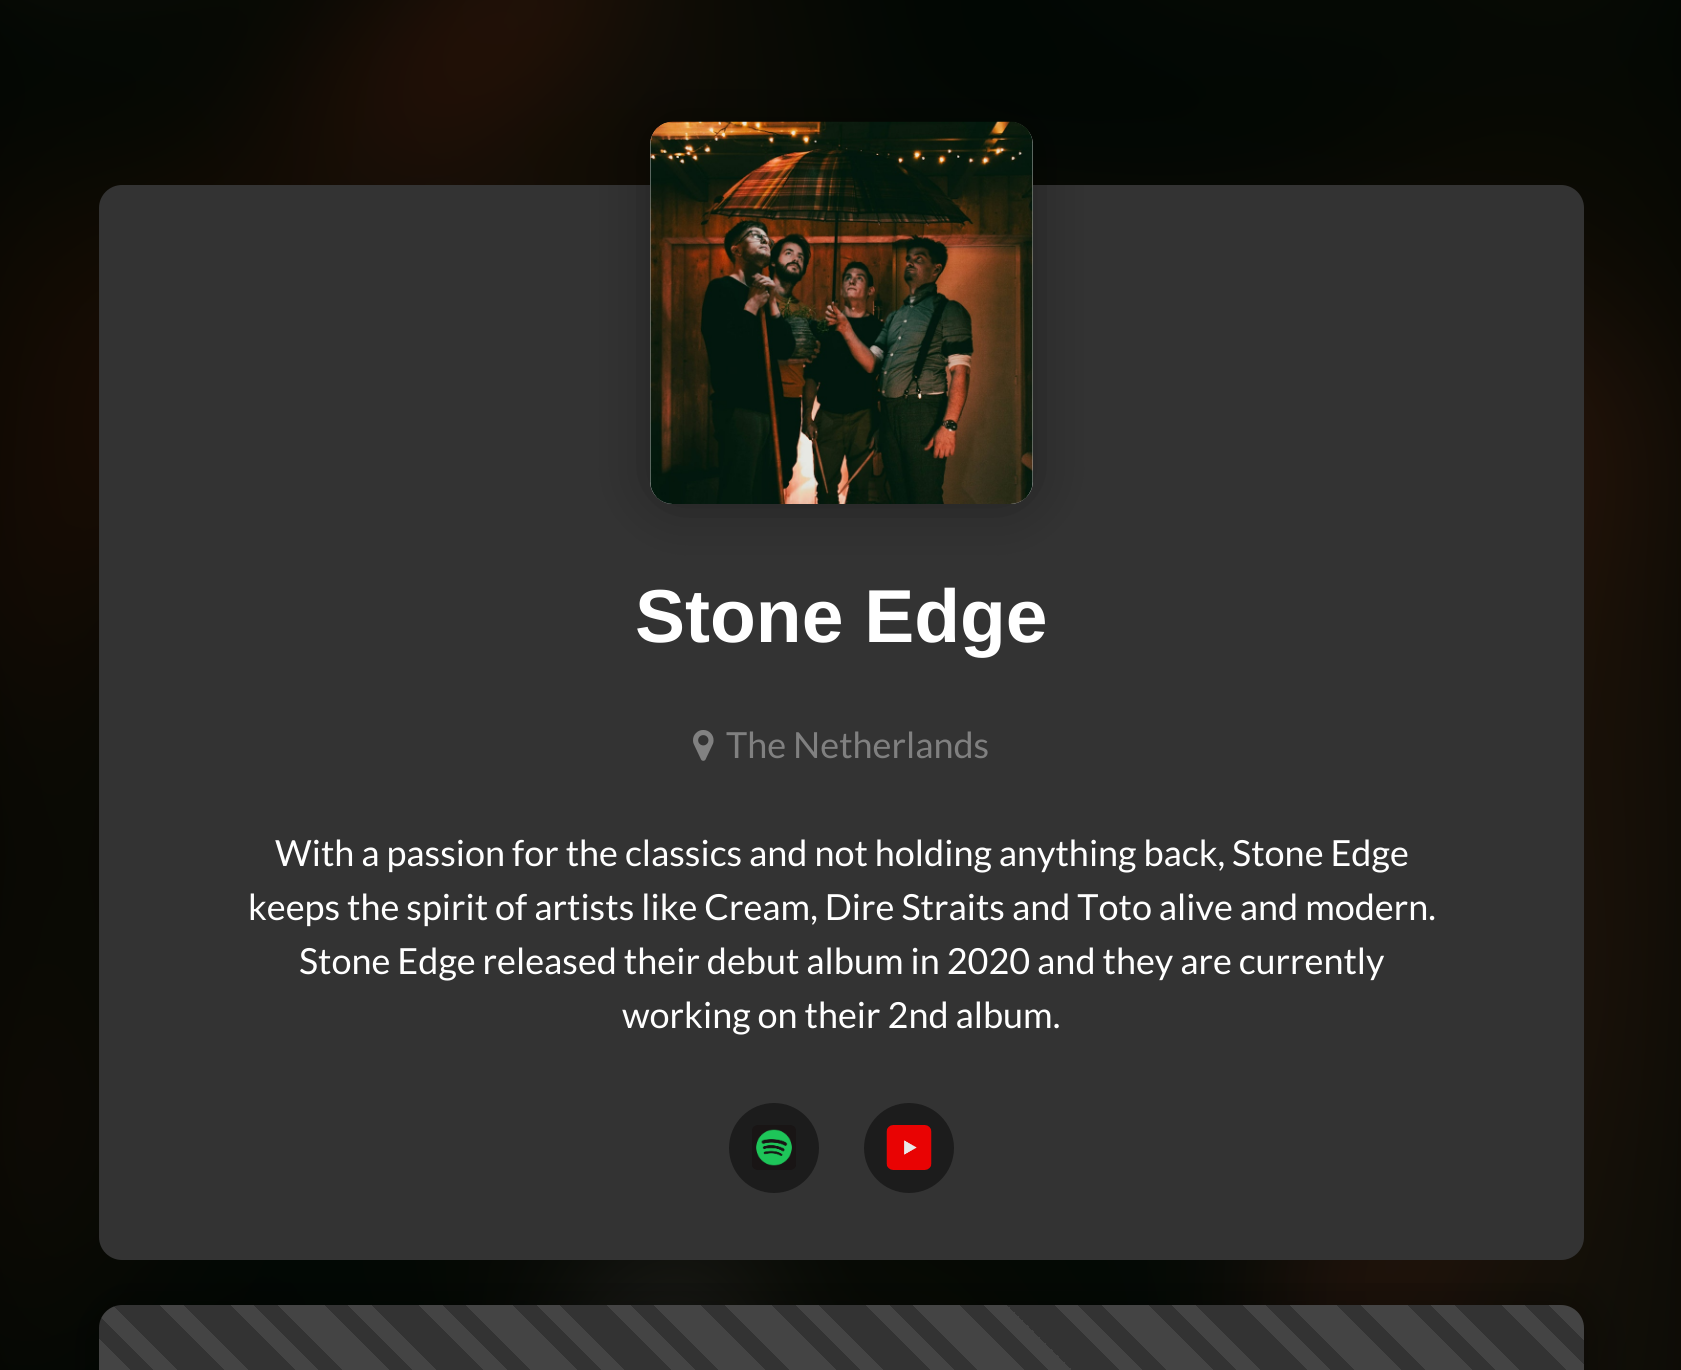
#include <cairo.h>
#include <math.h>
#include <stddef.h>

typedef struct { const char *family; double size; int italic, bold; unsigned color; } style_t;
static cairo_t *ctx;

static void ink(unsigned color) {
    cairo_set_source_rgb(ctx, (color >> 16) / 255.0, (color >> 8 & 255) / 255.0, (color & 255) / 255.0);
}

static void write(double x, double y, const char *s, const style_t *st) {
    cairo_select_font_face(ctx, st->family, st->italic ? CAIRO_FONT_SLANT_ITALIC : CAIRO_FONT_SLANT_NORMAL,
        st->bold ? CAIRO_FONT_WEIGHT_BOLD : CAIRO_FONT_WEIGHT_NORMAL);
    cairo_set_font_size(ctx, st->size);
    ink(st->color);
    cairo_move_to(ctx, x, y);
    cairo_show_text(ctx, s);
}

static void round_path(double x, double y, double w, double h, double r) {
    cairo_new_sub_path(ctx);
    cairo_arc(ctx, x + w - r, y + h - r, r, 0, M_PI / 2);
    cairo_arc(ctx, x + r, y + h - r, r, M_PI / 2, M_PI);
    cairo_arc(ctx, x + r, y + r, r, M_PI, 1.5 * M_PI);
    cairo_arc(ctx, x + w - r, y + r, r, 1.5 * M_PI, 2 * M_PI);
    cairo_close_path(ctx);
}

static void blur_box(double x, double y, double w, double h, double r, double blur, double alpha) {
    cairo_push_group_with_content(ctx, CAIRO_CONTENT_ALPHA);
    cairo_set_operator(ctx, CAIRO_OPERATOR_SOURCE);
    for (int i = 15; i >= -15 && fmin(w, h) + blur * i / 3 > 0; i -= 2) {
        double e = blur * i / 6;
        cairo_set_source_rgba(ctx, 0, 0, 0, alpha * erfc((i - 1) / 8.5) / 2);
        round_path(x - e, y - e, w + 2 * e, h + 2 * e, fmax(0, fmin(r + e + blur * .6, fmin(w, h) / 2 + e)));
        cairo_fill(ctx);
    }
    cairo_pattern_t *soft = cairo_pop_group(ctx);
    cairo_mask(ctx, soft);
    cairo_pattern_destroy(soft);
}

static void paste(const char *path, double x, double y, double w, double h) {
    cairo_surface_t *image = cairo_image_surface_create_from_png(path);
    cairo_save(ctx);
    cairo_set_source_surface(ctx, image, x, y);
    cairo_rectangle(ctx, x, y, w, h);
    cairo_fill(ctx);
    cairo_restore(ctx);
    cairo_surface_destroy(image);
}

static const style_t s1 = {"Liberation Sans", 75, 0, 1, 0xffffff};
static const style_t s2 = {"Lato", 36, 0, 0, 0x808080};
static const style_t s3 = {"Lato", 36, 0, 0, 0xffffff};

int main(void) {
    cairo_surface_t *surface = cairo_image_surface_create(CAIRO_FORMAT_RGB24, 1681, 1370);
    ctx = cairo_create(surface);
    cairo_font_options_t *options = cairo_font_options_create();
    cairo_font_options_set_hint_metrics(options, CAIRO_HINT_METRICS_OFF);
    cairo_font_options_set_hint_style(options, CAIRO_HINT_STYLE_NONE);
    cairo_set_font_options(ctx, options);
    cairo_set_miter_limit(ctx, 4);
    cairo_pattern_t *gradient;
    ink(0x000000);
    cairo_paint(ctx);
    paste("pic1.png", 0, 0, 1681, 1370);
    cairo_save(ctx);
    cairo_rectangle(ctx, 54, 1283, 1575, 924);
    cairo_clip(ctx);
    blur_box(99, 1305, 1485, 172, 23, 28, 0.35);
    cairo_restore(ctx);
    ink(0x333333);
    round_path(99, 185, 1485, 1075, 23);
    cairo_fill(ctx);
    ink(0x000000);
    blur_box(650, 122, 383, 382, 23, 28, 0.35);
    ink(0xcccccc);
    round_path(650, 122, 383, 382, 23);
    cairo_fill(ctx);
    paste("pic2.png", 650, 121, 383, 383);
    write(635, 642, "Stone Edge", &s1);
    paste("pic3.png", 693, 730, 21, 31);
    write(726, 758, "The Netherlands", &s2);
    write(275, 866, "With a passion for the classics and not holding anything back, Stone Edge", &s3);
    write(248, 920, "keeps the spirit of artists like Cream, Dire Straits and Toto alive and modern.", &s3);
    write(299, 974, "Stone Edge released their debut album in 2020 and they are currently", &s3);
    write(622, 1028, "working on their 2nd album.", &s3);
    ink(0x1c1c1c);
    cairo_new_path(ctx);
    cairo_arc(ctx, 774, 1148, 45, 0, 2 * M_PI);
    cairo_fill(ctx);
    paste("pic4.png", 752, 1125, 44, 45);
    cairo_arc(ctx, 909, 1148, 45, 0, 2 * M_PI);
    cairo_fill(ctx);
    paste("pic5.png", 886, 1125, 46, 45);
    gradient = cairo_pattern_create_linear(262, 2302, 1439, 1125);
    cairo_pattern_add_color_stop_rgba(gradient, 0, 0.267, 0.267, 0.267, 1);
    cairo_pattern_add_color_stop_rgba(gradient, 0.01, 0.267, 0.267, 0.267, 1);
    cairo_pattern_add_color_stop_rgba(gradient, 0.01, 0.2, 0.2, 0.2, 1);
    cairo_pattern_add_color_stop_rgba(gradient, 0.03, 0.2, 0.2, 0.2, 1);
    cairo_pattern_add_color_stop_rgba(gradient, 0.03, 0.267, 0.267, 0.267, 1);
    cairo_pattern_add_color_stop_rgba(gradient, 0.04, 0.267, 0.267, 0.267, 1);
    cairo_pattern_add_color_stop_rgba(gradient, 0.04, 0.2, 0.2, 0.2, 1);
    cairo_pattern_add_color_stop_rgba(gradient, 0.05, 0.2, 0.2, 0.2, 1);
    cairo_pattern_add_color_stop_rgba(gradient, 0.05, 0.267, 0.267, 0.267, 1);
    cairo_pattern_add_color_stop_rgba(gradient, 0.07, 0.267, 0.267, 0.267, 1);
    cairo_pattern_add_color_stop_rgba(gradient, 0.07, 0.2, 0.2, 0.2, 1);
    cairo_pattern_add_color_stop_rgba(gradient, 0.08, 0.2, 0.2, 0.2, 1);
    cairo_pattern_add_color_stop_rgba(gradient, 0.08, 0.267, 0.267, 0.267, 1);
    cairo_pattern_add_color_stop_rgba(gradient, 0.09, 0.267, 0.267, 0.267, 1);
    cairo_pattern_add_color_stop_rgba(gradient, 0.09, 0.2, 0.2, 0.2, 1);
    cairo_pattern_add_color_stop_rgba(gradient, 0.11, 0.2, 0.2, 0.2, 1);
    cairo_pattern_add_color_stop_rgba(gradient, 0.11, 0.267, 0.267, 0.267, 1);
    cairo_pattern_add_color_stop_rgba(gradient, 0.12, 0.267, 0.267, 0.267, 1);
    cairo_pattern_add_color_stop_rgba(gradient, 0.12, 0.2, 0.2, 0.2, 1);
    cairo_pattern_add_color_stop_rgba(gradient, 0.14, 0.2, 0.2, 0.2, 1);
    cairo_pattern_add_color_stop_rgba(gradient, 0.14, 0.267, 0.267, 0.267, 1);
    cairo_pattern_add_color_stop_rgba(gradient, 0.15, 0.267, 0.267, 0.267, 1);
    cairo_pattern_add_color_stop_rgba(gradient, 0.15, 0.2, 0.2, 0.2, 1);
    cairo_pattern_add_color_stop_rgba(gradient, 0.16, 0.2, 0.2, 0.2, 1);
    cairo_pattern_add_color_stop_rgba(gradient, 0.16, 0.267, 0.267, 0.267, 1);
    cairo_pattern_add_color_stop_rgba(gradient, 0.18, 0.267, 0.267, 0.267, 1);
    cairo_pattern_add_color_stop_rgba(gradient, 0.18, 0.2, 0.2, 0.2, 1);
    cairo_pattern_add_color_stop_rgba(gradient, 0.19, 0.2, 0.2, 0.2, 1);
    cairo_pattern_add_color_stop_rgba(gradient, 0.19, 0.267, 0.267, 0.267, 1);
    cairo_pattern_add_color_stop_rgba(gradient, 0.2, 0.267, 0.267, 0.267, 1);
    cairo_pattern_add_color_stop_rgba(gradient, 0.2, 0.2, 0.2, 0.2, 1);
    cairo_pattern_add_color_stop_rgba(gradient, 0.22, 0.2, 0.2, 0.2, 1);
    cairo_pattern_add_color_stop_rgba(gradient, 0.22, 0.267, 0.267, 0.267, 1);
    cairo_pattern_add_color_stop_rgba(gradient, 0.23, 0.267, 0.267, 0.267, 1);
    cairo_pattern_add_color_stop_rgba(gradient, 0.23, 0.2, 0.2, 0.2, 1);
    cairo_pattern_add_color_stop_rgba(gradient, 0.24, 0.2, 0.2, 0.2, 1);
    cairo_pattern_add_color_stop_rgba(gradient, 0.24, 0.267, 0.267, 0.267, 1);
    cairo_pattern_add_color_stop_rgba(gradient, 0.26, 0.267, 0.267, 0.267, 1);
    cairo_pattern_add_color_stop_rgba(gradient, 0.26, 0.2, 0.2, 0.2, 1);
    cairo_pattern_add_color_stop_rgba(gradient, 0.27, 0.2, 0.2, 0.2, 1);
    cairo_pattern_add_color_stop_rgba(gradient, 0.27, 0.267, 0.267, 0.267, 1);
    cairo_pattern_add_color_stop_rgba(gradient, 0.28, 0.267, 0.267, 0.267, 1);
    cairo_pattern_add_color_stop_rgba(gradient, 0.28, 0.2, 0.2, 0.2, 1);
    cairo_pattern_add_color_stop_rgba(gradient, 0.3, 0.2, 0.2, 0.2, 1);
    cairo_pattern_add_color_stop_rgba(gradient, 0.3, 0.267, 0.267, 0.267, 1);
    cairo_pattern_add_color_stop_rgba(gradient, 0.31, 0.267, 0.267, 0.267, 1);
    cairo_pattern_add_color_stop_rgba(gradient, 0.31, 0.2, 0.2, 0.2, 1);
    cairo_pattern_add_color_stop_rgba(gradient, 0.32, 0.2, 0.2, 0.2, 1);
    cairo_pattern_add_color_stop_rgba(gradient, 0.32, 0.267, 0.267, 0.267, 1);
    cairo_pattern_add_color_stop_rgba(gradient, 0.34, 0.267, 0.267, 0.267, 1);
    cairo_pattern_add_color_stop_rgba(gradient, 0.34, 0.2, 0.2, 0.2, 1);
    cairo_pattern_add_color_stop_rgba(gradient, 0.35, 0.2, 0.2, 0.2, 1);
    cairo_pattern_add_color_stop_rgba(gradient, 0.35, 0.267, 0.267, 0.267, 1);
    cairo_pattern_add_color_stop_rgba(gradient, 0.36, 0.267, 0.267, 0.267, 1);
    cairo_pattern_add_color_stop_rgba(gradient, 0.36, 0.2, 0.2, 0.2, 1);
    cairo_pattern_add_color_stop_rgba(gradient, 0.38, 0.2, 0.2, 0.2, 1);
    cairo_pattern_add_color_stop_rgba(gradient, 0.38, 0.267, 0.267, 0.267, 1);
    cairo_pattern_add_color_stop_rgba(gradient, 0.39, 0.267, 0.267, 0.267, 1);
    cairo_pattern_add_color_stop_rgba(gradient, 0.39, 0.2, 0.2, 0.2, 1);
    cairo_pattern_add_color_stop_rgba(gradient, 0.41, 0.2, 0.2, 0.2, 1);
    cairo_pattern_add_color_stop_rgba(gradient, 0.41, 0.267, 0.267, 0.267, 1);
    cairo_pattern_add_color_stop_rgba(gradient, 0.42, 0.267, 0.267, 0.267, 1);
    cairo_pattern_add_color_stop_rgba(gradient, 0.42, 0.2, 0.2, 0.2, 1);
    cairo_pattern_add_color_stop_rgba(gradient, 0.43, 0.2, 0.2, 0.2, 1);
    cairo_pattern_add_color_stop_rgba(gradient, 0.43, 0.267, 0.267, 0.267, 1);
    cairo_pattern_add_color_stop_rgba(gradient, 0.45, 0.267, 0.267, 0.267, 1);
    cairo_pattern_add_color_stop_rgba(gradient, 0.45, 0.2, 0.2, 0.2, 1);
    cairo_pattern_add_color_stop_rgba(gradient, 0.46, 0.2, 0.2, 0.2, 1);
    cairo_pattern_add_color_stop_rgba(gradient, 0.46, 0.267, 0.267, 0.267, 1);
    cairo_pattern_add_color_stop_rgba(gradient, 0.47, 0.267, 0.267, 0.267, 1);
    cairo_pattern_add_color_stop_rgba(gradient, 0.47, 0.2, 0.2, 0.2, 1);
    cairo_pattern_add_color_stop_rgba(gradient, 0.49, 0.2, 0.2, 0.2, 1);
    cairo_pattern_add_color_stop_rgba(gradient, 0.49, 0.267, 0.267, 0.267, 1);
    cairo_pattern_add_color_stop_rgba(gradient, 0.5, 0.267, 0.267, 0.267, 1);
    cairo_pattern_add_color_stop_rgba(gradient, 0.5, 0.2, 0.2, 0.2, 1);
    cairo_pattern_add_color_stop_rgba(gradient, 0.51, 0.2, 0.2, 0.2, 1);
    cairo_pattern_add_color_stop_rgba(gradient, 0.51, 0.267, 0.267, 0.267, 1);
    cairo_pattern_add_color_stop_rgba(gradient, 0.53, 0.267, 0.267, 0.267, 1);
    cairo_pattern_add_color_stop_rgba(gradient, 0.53, 0.2, 0.2, 0.2, 1);
    cairo_pattern_add_color_stop_rgba(gradient, 0.54, 0.2, 0.2, 0.2, 1);
    cairo_pattern_add_color_stop_rgba(gradient, 0.54, 0.267, 0.267, 0.267, 1);
    cairo_pattern_add_color_stop_rgba(gradient, 0.55, 0.267, 0.267, 0.267, 1);
    cairo_pattern_add_color_stop_rgba(gradient, 0.55, 0.2, 0.2, 0.2, 1);
    cairo_pattern_add_color_stop_rgba(gradient, 0.57, 0.2, 0.2, 0.2, 1);
    cairo_pattern_add_color_stop_rgba(gradient, 0.57, 0.267, 0.267, 0.267, 1);
    cairo_pattern_add_color_stop_rgba(gradient, 0.58, 0.267, 0.267, 0.267, 1);
    cairo_pattern_add_color_stop_rgba(gradient, 0.58, 0.2, 0.2, 0.2, 1);
    cairo_pattern_add_color_stop_rgba(gradient, 0.59, 0.2, 0.2, 0.2, 1);
    cairo_pattern_add_color_stop_rgba(gradient, 0.59, 0.267, 0.267, 0.267, 1);
    cairo_pattern_add_color_stop_rgba(gradient, 0.61, 0.267, 0.267, 0.267, 1);
    cairo_pattern_add_color_stop_rgba(gradient, 0.61, 0.2, 0.2, 0.2, 1);
    cairo_pattern_add_color_stop_rgba(gradient, 0.62, 0.2, 0.2, 0.2, 1);
    cairo_pattern_add_color_stop_rgba(gradient, 0.62, 0.267, 0.267, 0.267, 1);
    cairo_pattern_add_color_stop_rgba(gradient, 0.64, 0.267, 0.267, 0.267, 1);
    cairo_pattern_add_color_stop_rgba(gradient, 0.64, 0.2, 0.2, 0.2, 1);
    cairo_pattern_add_color_stop_rgba(gradient, 0.65, 0.2, 0.2, 0.2, 1);
    cairo_pattern_add_color_stop_rgba(gradient, 0.65, 0.267, 0.267, 0.267, 1);
    cairo_pattern_add_color_stop_rgba(gradient, 0.66, 0.267, 0.267, 0.267, 1);
    cairo_pattern_add_color_stop_rgba(gradient, 0.66, 0.2, 0.2, 0.2, 1);
    cairo_pattern_add_color_stop_rgba(gradient, 0.68, 0.2, 0.2, 0.2, 1);
    cairo_pattern_add_color_stop_rgba(gradient, 0.68, 0.267, 0.267, 0.267, 1);
    cairo_pattern_add_color_stop_rgba(gradient, 0.69, 0.267, 0.267, 0.267, 1);
    cairo_pattern_add_color_stop_rgba(gradient, 0.69, 0.2, 0.2, 0.2, 1);
    cairo_pattern_add_color_stop_rgba(gradient, 0.7, 0.2, 0.2, 0.2, 1);
    cairo_pattern_add_color_stop_rgba(gradient, 0.7, 0.267, 0.267, 0.267, 1);
    cairo_pattern_add_color_stop_rgba(gradient, 0.72, 0.267, 0.267, 0.267, 1);
    cairo_pattern_add_color_stop_rgba(gradient, 0.72, 0.2, 0.2, 0.2, 1);
    cairo_pattern_add_color_stop_rgba(gradient, 0.73, 0.2, 0.2, 0.2, 1);
    cairo_pattern_add_color_stop_rgba(gradient, 0.73, 0.267, 0.267, 0.267, 1);
    cairo_pattern_add_color_stop_rgba(gradient, 0.74, 0.267, 0.267, 0.267, 1);
    cairo_pattern_add_color_stop_rgba(gradient, 0.74, 0.2, 0.2, 0.2, 1);
    cairo_pattern_add_color_stop_rgba(gradient, 0.76, 0.2, 0.2, 0.2, 1);
    cairo_pattern_add_color_stop_rgba(gradient, 0.76, 0.267, 0.267, 0.267, 1);
    cairo_pattern_add_color_stop_rgba(gradient, 0.77, 0.267, 0.267, 0.267, 1);
    cairo_pattern_add_color_stop_rgba(gradient, 0.77, 0.2, 0.2, 0.2, 1);
    cairo_pattern_add_color_stop_rgba(gradient, 0.78, 0.2, 0.2, 0.2, 1);
    cairo_pattern_add_color_stop_rgba(gradient, 0.78, 0.267, 0.267, 0.267, 1);
    cairo_pattern_add_color_stop_rgba(gradient, 0.8, 0.267, 0.267, 0.267, 1);
    cairo_pattern_add_color_stop_rgba(gradient, 0.8, 0.2, 0.2, 0.2, 1);
    cairo_pattern_add_color_stop_rgba(gradient, 0.81, 0.2, 0.2, 0.2, 1);
    cairo_pattern_add_color_stop_rgba(gradient, 0.81, 0.267, 0.267, 0.267, 1);
    cairo_pattern_add_color_stop_rgba(gradient, 0.82, 0.267, 0.267, 0.267, 1);
    cairo_pattern_add_color_stop_rgba(gradient, 0.82, 0.2, 0.2, 0.2, 1);
    cairo_pattern_add_color_stop_rgba(gradient, 0.84, 0.2, 0.2, 0.2, 1);
    cairo_pattern_add_color_stop_rgba(gradient, 0.84, 0.267, 0.267, 0.267, 1);
    cairo_pattern_add_color_stop_rgba(gradient, 0.85, 0.267, 0.267, 0.267, 1);
    cairo_pattern_add_color_stop_rgba(gradient, 0.85, 0.2, 0.2, 0.2, 1);
    cairo_pattern_add_color_stop_rgba(gradient, 0.86, 0.2, 0.2, 0.2, 1);
    cairo_pattern_add_color_stop_rgba(gradient, 0.86, 0.267, 0.267, 0.267, 1);
    cairo_pattern_add_color_stop_rgba(gradient, 0.88, 0.267, 0.267, 0.267, 1);
    cairo_pattern_add_color_stop_rgba(gradient, 0.88, 0.2, 0.2, 0.2, 1);
    cairo_pattern_add_color_stop_rgba(gradient, 0.89, 0.2, 0.2, 0.2, 1);
    cairo_pattern_add_color_stop_rgba(gradient, 0.89, 0.267, 0.267, 0.267, 1);
    cairo_pattern_add_color_stop_rgba(gradient, 0.91, 0.267, 0.267, 0.267, 1);
    cairo_pattern_add_color_stop_rgba(gradient, 0.91, 0.2, 0.2, 0.2, 1);
    cairo_pattern_add_color_stop_rgba(gradient, 0.92, 0.2, 0.2, 0.2, 1);
    cairo_pattern_add_color_stop_rgba(gradient, 0.92, 0.267, 0.267, 0.267, 1);
    cairo_pattern_add_color_stop_rgba(gradient, 0.93, 0.267, 0.267, 0.267, 1);
    cairo_pattern_add_color_stop_rgba(gradient, 0.93, 0.2, 0.2, 0.2, 1);
    cairo_pattern_add_color_stop_rgba(gradient, 0.95, 0.2, 0.2, 0.2, 1);
    cairo_pattern_add_color_stop_rgba(gradient, 0.95, 0.267, 0.267, 0.267, 1);
    cairo_pattern_add_color_stop_rgba(gradient, 0.96, 0.267, 0.267, 0.267, 1);
    cairo_pattern_add_color_stop_rgba(gradient, 0.96, 0.2, 0.2, 0.2, 1);
    cairo_pattern_add_color_stop_rgba(gradient, 0.97, 0.2, 0.2, 0.2, 1);
    cairo_pattern_add_color_stop_rgba(gradient, 0.97, 0.267, 0.267, 0.267, 1);
    cairo_pattern_add_color_stop_rgba(gradient, 0.99, 0.267, 0.267, 0.267, 1);
    cairo_pattern_add_color_stop_rgba(gradient, 0.99, 0.2, 0.2, 0.2, 1);
    cairo_pattern_add_color_stop_rgba(gradient, 1, 0.2, 0.2, 0.2, 1);
    cairo_set_source(ctx, gradient);
    cairo_pattern_destroy(gradient);
    round_path(99, 1305, 1485, 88, 23);
    cairo_fill(ctx);
    cairo_surface_write_to_png(surface, "screenshot.png");
    cairo_font_options_destroy(options);
    cairo_destroy(ctx);
    cairo_surface_destroy(surface);
    return 0;
}
